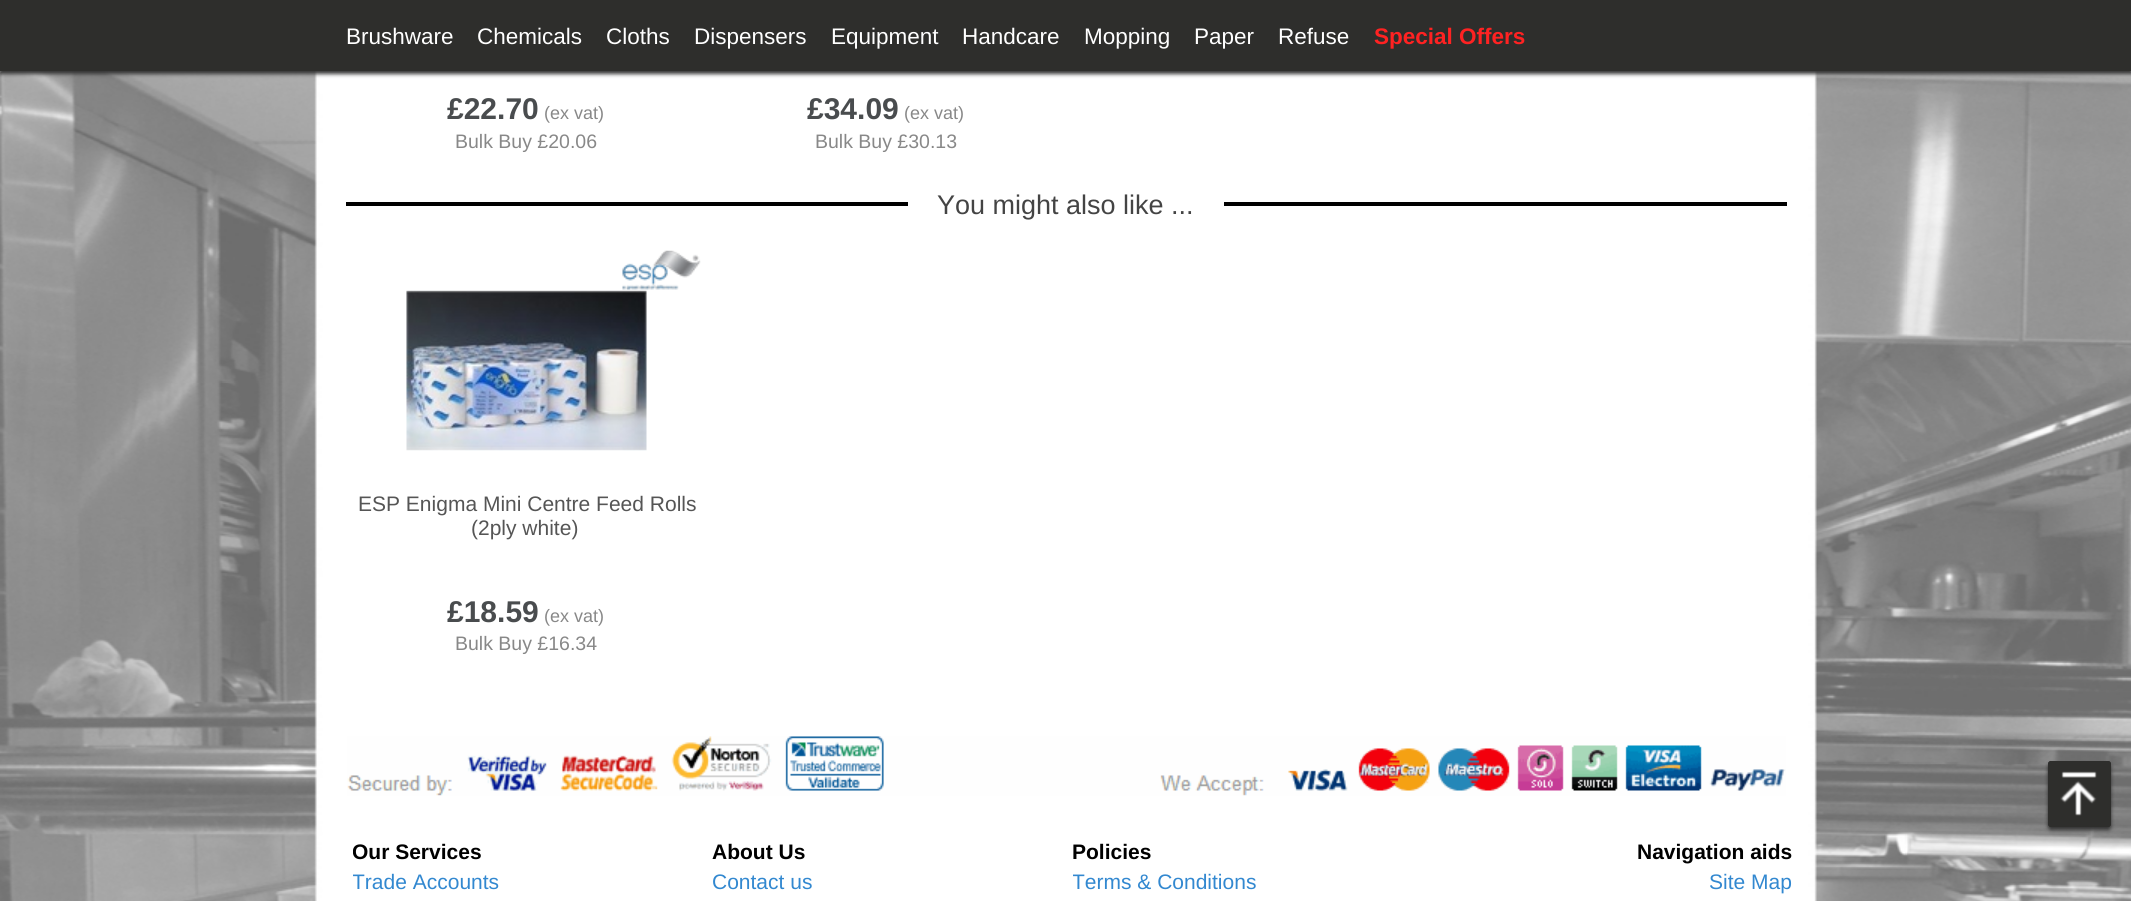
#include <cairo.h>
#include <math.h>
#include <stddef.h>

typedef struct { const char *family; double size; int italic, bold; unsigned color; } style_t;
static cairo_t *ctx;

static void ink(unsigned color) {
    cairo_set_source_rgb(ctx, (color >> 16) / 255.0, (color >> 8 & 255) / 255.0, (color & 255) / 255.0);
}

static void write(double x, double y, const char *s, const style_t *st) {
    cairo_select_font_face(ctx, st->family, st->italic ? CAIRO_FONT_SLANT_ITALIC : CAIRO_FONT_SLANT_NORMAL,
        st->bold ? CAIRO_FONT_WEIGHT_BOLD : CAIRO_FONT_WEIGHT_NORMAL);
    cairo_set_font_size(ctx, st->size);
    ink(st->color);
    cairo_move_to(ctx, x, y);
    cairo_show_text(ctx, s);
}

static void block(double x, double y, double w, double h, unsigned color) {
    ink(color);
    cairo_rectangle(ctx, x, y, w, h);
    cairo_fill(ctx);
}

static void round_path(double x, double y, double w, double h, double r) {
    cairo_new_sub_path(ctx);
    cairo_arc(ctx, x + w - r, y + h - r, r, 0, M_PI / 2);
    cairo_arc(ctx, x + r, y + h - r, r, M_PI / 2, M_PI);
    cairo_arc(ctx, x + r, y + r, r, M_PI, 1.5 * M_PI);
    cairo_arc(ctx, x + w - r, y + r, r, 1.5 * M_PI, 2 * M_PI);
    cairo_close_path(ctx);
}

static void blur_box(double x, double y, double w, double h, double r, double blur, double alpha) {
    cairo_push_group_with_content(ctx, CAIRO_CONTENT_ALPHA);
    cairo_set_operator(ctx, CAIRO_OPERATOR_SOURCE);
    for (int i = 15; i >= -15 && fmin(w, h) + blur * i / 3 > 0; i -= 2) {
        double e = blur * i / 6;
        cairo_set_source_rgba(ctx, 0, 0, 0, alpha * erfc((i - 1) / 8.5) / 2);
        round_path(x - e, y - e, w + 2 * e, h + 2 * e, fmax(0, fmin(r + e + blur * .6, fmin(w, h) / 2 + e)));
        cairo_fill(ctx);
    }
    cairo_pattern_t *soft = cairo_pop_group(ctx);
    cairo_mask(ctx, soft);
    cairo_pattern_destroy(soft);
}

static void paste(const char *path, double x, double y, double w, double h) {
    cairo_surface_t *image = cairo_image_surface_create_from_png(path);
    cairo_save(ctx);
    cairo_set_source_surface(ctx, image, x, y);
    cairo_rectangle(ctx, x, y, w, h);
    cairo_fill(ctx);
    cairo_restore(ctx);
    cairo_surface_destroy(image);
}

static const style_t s1 = {"Liberation Sans", 22.5, 0, 0, 0xffffff};
static const style_t s2 = {"Liberation Sans", 22.5, 0, 1, 0xff2222};
static const style_t s3 = {"Liberation Sans", 30, 0, 1, 0x494c4e};
static const style_t s4 = {"Liberation Sans", 18, 0, 0, 0x888888};
static const style_t s5 = {"Liberation Sans", 19.5, 0, 0, 0x888888};
static const style_t s6 = {"Liberation Sans", 27, 0, 0, 0x444444};
static const style_t s7 = {"Liberation Sans", 21, 0, 0, 0x555555};
static const style_t s8 = {"Liberation Sans", 21, 0, 1, 0x000000};
static const style_t s9 = {"Liberation Sans", 21, 0, 0, 0x3288d0};

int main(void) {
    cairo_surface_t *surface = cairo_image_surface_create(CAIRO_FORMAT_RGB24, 2131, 901);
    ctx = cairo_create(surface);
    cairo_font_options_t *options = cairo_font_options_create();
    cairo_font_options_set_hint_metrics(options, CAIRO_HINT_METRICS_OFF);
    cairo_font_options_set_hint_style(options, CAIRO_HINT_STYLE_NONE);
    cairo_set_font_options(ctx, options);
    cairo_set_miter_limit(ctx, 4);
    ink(0xffffff);
    cairo_paint(ctx);
    paste("pic1.png", 0, 71, 2131, 830);
    ink(0x333333);
    blur_box(0, 3, 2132, 71, 0, 2, 1);
    block(0, 0, 2131, 71, 0x2e2e2c);
    write(346, 44, "Brushware", &s1);
    write(477, 44, "Chemicals", &s1);
    write(606, 44, "Cloths", &s1);
    write(694, 44, "Dispensers", &s1);
    write(831, 44, "Equipment", &s1);
    write(962, 44, "Handcare", &s1);
    write(1084, 44, "Mopping", &s1);
    write(1194, 44, "Paper", &s1);
    write(1278, 44, "Refuse", &s1);
    write(1374, 44, "Special Offers", &s2);
    paste("pic2.png", 347, 736, 1439, 60);
    write(447, 119, "£22.70", &s3);
    write(544, 119, "(ex vat)", &s4);
    write(455, 148, "Bulk Buy £20.06", &s5);
    write(807, 119, "£34.09", &s3);
    write(904, 119, "(ex vat)", &s4);
    write(815, 148, "Bulk Buy £30.13", &s5);
    block(346, 202, 1441, 4, 0x000000);
    block(908, 202, 316, 4, 0xffffff);
    write(937, 214, "You might also like ...", &s6);
    paste("pic3.png", 622, 250, 79, 40);
    paste("pic4.png", 406, 290, 241, 161);
    write(358, 511, "ESP Enigma Mini Centre Feed Rolls", &s7);
    write(471, 535, "(2ply white)", &s7);
    write(447, 622, "£18.59", &s3);
    write(544, 622, "(ex vat)", &s4);
    write(455, 650, "Bulk Buy £16.34", &s5);
    ink(0x333333);
    blur_box(2048, 764, 63, 66, 3, 2, 1);
    ink(0x2e2e2c);
    round_path(2048, 761, 63, 66, 3);
    cairo_fill(ctx);
    paste("pic5.png", 2060, 771, 37, 45);
    round_path(2049.5, 762.5, 60, 63, 1.5);
    cairo_set_line_width(ctx, 3);
    cairo_stroke(ctx);
    cairo_save(ctx);
    cairo_rectangle(ctx, 353, 836, 360, 60);
    cairo_clip(ctx);
    write(352, 859, "Our Services", &s8);
    write(352, 889, "Trade Accounts", &s9);
    cairo_restore(ctx);
    write(712, 859, "About Us", &s8);
    cairo_save(ctx);
    cairo_rectangle(ctx, 713, 836, 360, 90);
    cairo_clip(ctx);
    write(712, 889, "Contact us", &s9);
    cairo_restore(ctx);
    write(1072, 859, "Policies", &s8);
    cairo_save(ctx);
    cairo_rectangle(ctx, 1073, 836, 360, 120);
    cairo_clip(ctx);
    write(1072, 889, "Terms & Conditions", &s9);
    cairo_restore(ctx);
    write(1637, 859, "Navigation aids", &s8);
    write(1709, 889, "Site Map", &s9);
    cairo_surface_write_to_png(surface, "screenshot.png");
    cairo_font_options_destroy(options);
    cairo_destroy(ctx);
    cairo_surface_destroy(surface);
    return 0;
}
